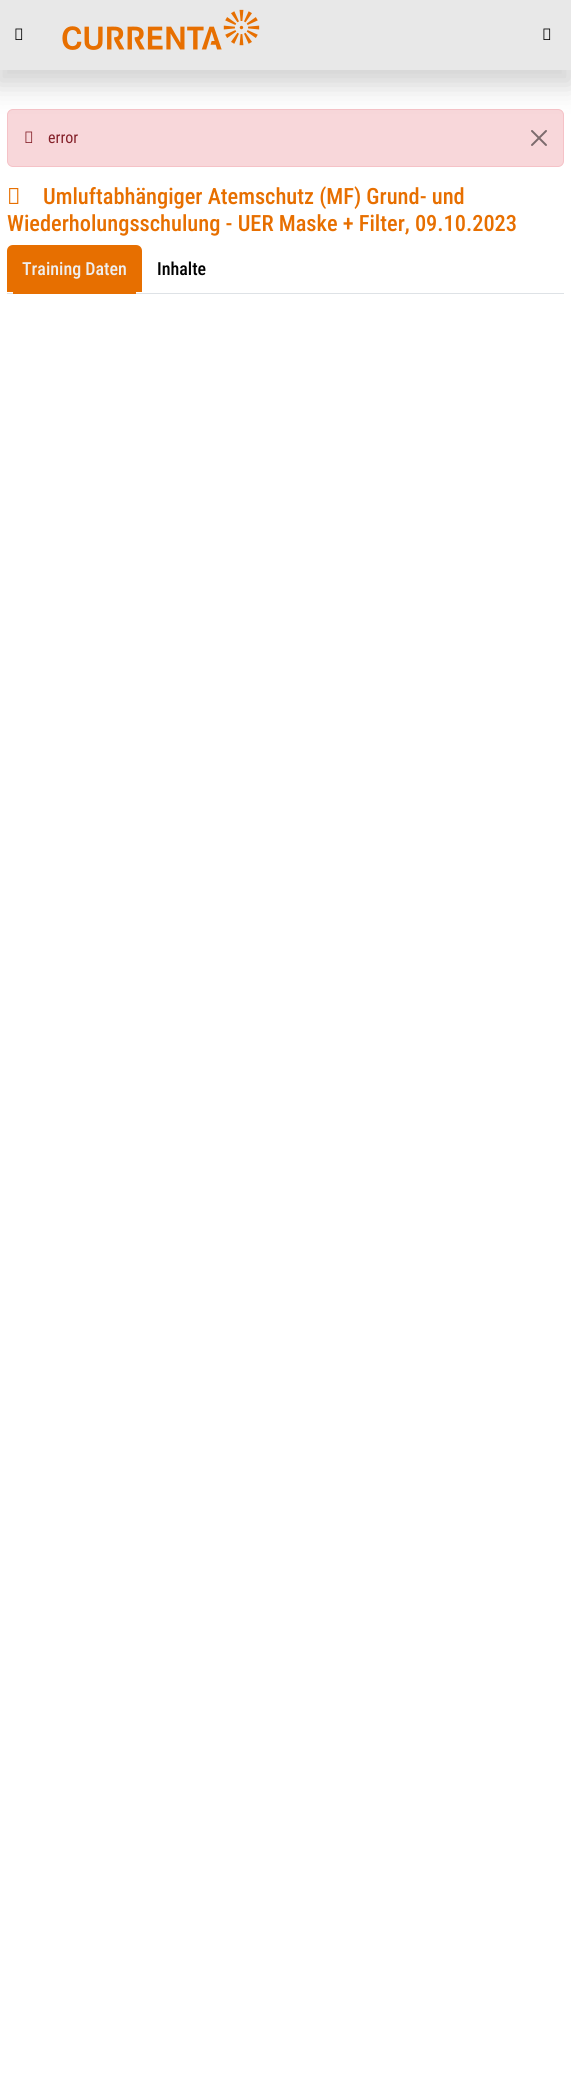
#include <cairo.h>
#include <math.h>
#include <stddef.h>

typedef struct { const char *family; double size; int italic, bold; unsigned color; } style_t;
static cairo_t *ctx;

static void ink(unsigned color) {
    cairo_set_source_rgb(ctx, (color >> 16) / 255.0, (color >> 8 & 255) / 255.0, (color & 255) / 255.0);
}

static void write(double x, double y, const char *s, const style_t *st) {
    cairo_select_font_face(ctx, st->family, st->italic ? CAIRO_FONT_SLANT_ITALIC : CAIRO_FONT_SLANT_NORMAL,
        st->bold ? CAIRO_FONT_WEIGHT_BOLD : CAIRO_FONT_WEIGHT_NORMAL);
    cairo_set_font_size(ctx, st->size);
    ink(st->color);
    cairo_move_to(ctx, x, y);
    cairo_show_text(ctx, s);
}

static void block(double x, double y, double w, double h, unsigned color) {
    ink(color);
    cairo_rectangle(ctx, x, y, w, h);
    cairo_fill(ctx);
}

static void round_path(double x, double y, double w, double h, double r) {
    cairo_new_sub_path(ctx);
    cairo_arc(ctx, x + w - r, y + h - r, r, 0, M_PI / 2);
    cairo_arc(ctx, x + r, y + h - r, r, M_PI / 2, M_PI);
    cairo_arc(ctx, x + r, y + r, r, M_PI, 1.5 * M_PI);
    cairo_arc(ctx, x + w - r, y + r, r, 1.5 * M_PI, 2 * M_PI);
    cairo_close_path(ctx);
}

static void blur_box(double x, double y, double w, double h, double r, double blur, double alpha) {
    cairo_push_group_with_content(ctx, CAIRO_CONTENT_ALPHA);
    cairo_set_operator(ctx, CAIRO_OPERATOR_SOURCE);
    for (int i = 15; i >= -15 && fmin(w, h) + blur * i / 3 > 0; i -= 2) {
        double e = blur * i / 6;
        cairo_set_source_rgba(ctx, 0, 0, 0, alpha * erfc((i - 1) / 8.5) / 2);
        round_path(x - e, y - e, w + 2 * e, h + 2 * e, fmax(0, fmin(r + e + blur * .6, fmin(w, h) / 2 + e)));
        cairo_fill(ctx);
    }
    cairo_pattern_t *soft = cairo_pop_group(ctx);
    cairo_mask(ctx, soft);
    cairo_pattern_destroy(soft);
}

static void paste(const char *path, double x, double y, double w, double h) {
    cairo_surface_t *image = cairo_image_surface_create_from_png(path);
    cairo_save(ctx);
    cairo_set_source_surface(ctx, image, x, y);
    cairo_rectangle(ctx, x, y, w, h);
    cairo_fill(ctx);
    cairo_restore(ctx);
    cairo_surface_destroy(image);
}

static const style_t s1 = {"Roboto Condensed", 16, 0, 0, 0x842029};
static const style_t s2 = {"Roboto Condensed Medium", 22.4, 0, 0, 0xe76f00};
static const style_t s3 = {"Roboto Condensed Medium", 18, 0, 0, 0xeeeeee};
static const style_t s4 = {"Roboto Condensed Medium", 18, 0, 0, 0x000000};

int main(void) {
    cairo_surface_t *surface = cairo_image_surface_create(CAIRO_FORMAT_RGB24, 571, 2093);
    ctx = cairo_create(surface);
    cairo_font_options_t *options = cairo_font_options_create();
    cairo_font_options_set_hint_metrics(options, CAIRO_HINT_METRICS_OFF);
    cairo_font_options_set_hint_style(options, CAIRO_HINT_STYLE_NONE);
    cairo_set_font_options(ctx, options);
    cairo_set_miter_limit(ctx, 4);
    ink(0xffffff);
    cairo_paint(ctx);
    ink(0xf8d7da);
    round_path(7.5, 109.5, 556, 57, 5.5);
    cairo_fill_preserve(ctx);
    ink(0xf5c2c7);
    cairo_set_line_width(ctx, 1);
    cairo_stroke(ctx);
    ink(0x000000);
    blur_box(-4, 9, 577, 76, 0, 13.5, 0.18);
    block(0, 0, 571, 70, 0xe8e8e8);
    paste("pic1.png", 15, 28, 8, 12);
    paste("pic2.png", 62, 9, 198, 41);
    paste("pic1.png", 543, 28, 8, 12);
    paste("pic3.png", 25, 131, 8, 12);
    write(48, 143, "error", &s1);
    paste("pic4.png", 531, 130, 16, 16);
    paste("pic5.png", 9, 188, 10, 16);
    write(43, 204, "Umluftabhängiger Atemschutz (MF) Grund- und", &s2);
    write(7, 231, "Wiederholungsschulung - UER Maske + Filter, 09.10.2023", &s2);
    block(7, 293, 557, 1, 0xdee2e6);
    ink(0xe76f00);
    cairo_new_path(ctx);
    cairo_move_to(ctx, 13, 245);
    cairo_line_to(ctx, 136, 245);
    cairo_curve_to(ctx, 139.5, 245, 142, 247.5, 142, 251);
    cairo_line_to(ctx, 142, 292);
    cairo_line_to(ctx, 7, 292);
    cairo_line_to(ctx, 7, 251);
    cairo_curve_to(ctx, 7, 247.5, 9.5, 245, 13, 245);
    cairo_close_path(ctx);
    cairo_fill(ctx);
    block(13, 292, 123, 2, 0xe76f00);
    write(22, 275, "Training Daten", &s3);
    write(157, 275, "Inhalte", &s4);
    cairo_surface_write_to_png(surface, "screenshot.png");
    cairo_font_options_destroy(options);
    cairo_destroy(ctx);
    cairo_surface_destroy(surface);
    return 0;
}
